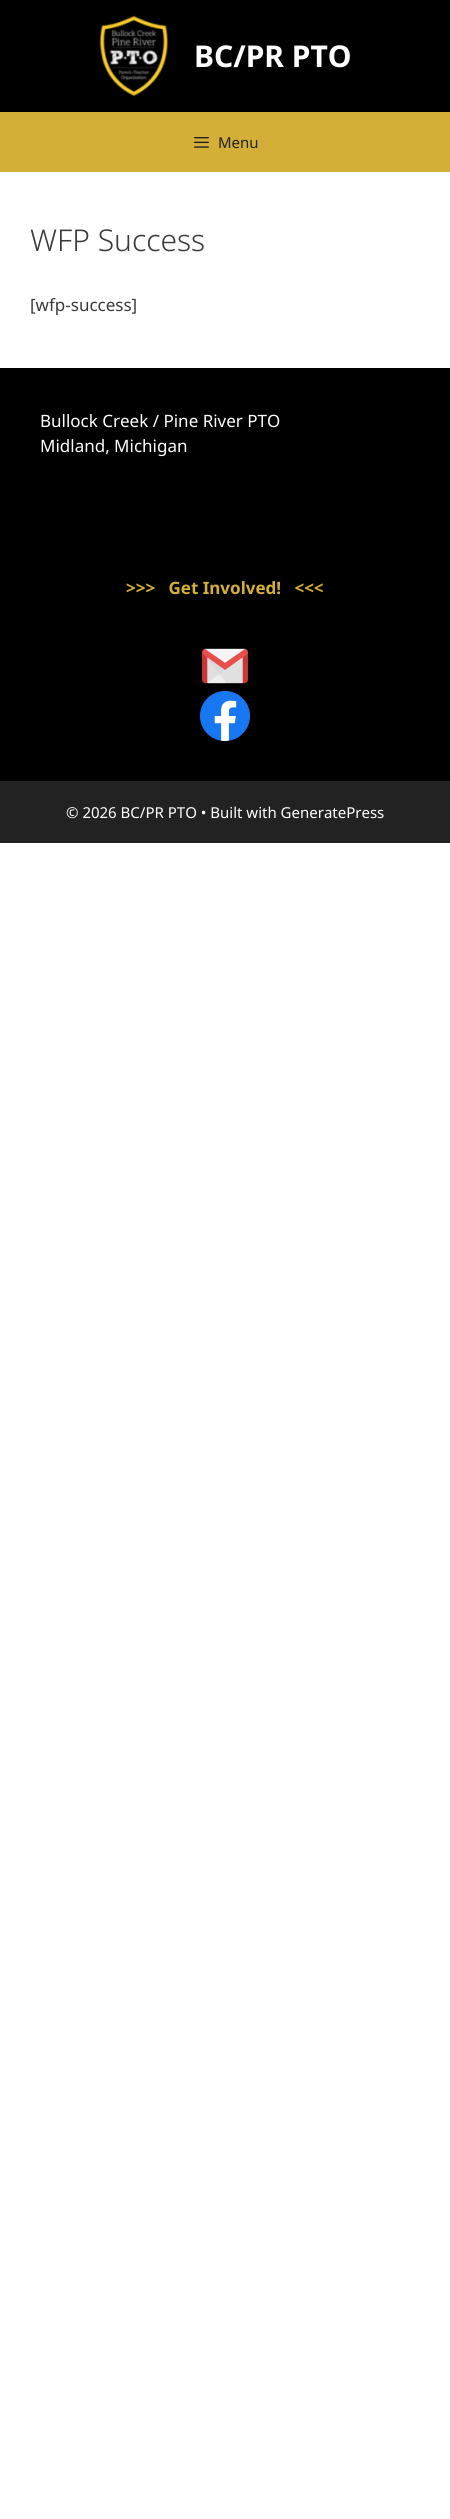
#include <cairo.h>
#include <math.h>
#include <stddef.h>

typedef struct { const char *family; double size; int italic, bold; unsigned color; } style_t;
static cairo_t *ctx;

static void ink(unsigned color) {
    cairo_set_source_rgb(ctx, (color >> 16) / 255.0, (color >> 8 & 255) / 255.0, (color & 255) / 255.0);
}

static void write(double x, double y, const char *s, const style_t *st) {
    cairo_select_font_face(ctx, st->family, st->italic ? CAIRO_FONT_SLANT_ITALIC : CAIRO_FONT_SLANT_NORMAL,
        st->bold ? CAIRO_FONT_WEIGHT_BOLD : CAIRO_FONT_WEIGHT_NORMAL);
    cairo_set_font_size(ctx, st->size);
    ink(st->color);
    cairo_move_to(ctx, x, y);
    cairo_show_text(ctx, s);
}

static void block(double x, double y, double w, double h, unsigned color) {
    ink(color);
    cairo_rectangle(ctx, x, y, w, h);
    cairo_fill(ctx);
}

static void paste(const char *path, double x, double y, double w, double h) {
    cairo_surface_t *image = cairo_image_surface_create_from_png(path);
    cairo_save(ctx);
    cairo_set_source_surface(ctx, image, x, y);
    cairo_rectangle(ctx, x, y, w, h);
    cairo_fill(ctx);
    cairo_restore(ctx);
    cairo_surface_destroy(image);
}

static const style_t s1 = {"Noto Sans", 30, 0, 1, 0xffffff};
static const style_t s2 = {"Noto Sans", 15, 0, 0, 0x222222};
static const style_t s3 = {"Noto Sans Light", 30, 0, 0, 0x3a3a3a};
static const style_t s4 = {"Noto Sans", 17, 0, 0, 0x3a3a3a};
static const style_t s5 = {"Noto Sans", 17, 0, 0, 0xffffff};
static const style_t s6 = {"Noto Sans", 17, 0, 1, 0xd4af37};
static const style_t s7 = {"Noto Sans", 15, 0, 0, 0xffffff};

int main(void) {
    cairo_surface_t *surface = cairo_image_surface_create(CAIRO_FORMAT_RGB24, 450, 2519);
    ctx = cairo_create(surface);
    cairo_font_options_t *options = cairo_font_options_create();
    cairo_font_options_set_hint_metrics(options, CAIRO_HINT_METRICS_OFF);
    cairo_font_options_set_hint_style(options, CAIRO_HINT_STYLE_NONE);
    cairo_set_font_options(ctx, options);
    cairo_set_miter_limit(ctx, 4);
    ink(0xffffff);
    cairo_paint(ctx);
    block(0, 0, 450, 112, 0x000000);
    paste("pic1.png", 99, 15, 70, 82);
    write(194, 67, "BC/PR PTO", &s1);
    block(0, 112, 450, 60, 0xd4af37);
    paste("pic2.png", 194, 137, 15, 11);
    write(218, 148, "Menu", &s2);
    write(30, 251, "WFP Success", &s3);
    write(30, 311, "[wfp-success]", &s4);
    block(0, 368, 450, 413, 0x000000);
    write(40, 427, "Bullock Creek / Pine River PTO", &s5);
    write(40, 452, "Midland, Michigan", &s5);
    write(126, 594, ">>>   Get Involved!   <<<", &s6);
    paste("pic3.png", 202, 648, 46, 36);
    paste("pic4.png", 200, 691, 50, 50);
    block(0, 781, 450, 62, 0x222222);
    write(66, 818, "© 2026 BC/PR PTO • Built with GeneratePress", &s7);
    cairo_surface_write_to_png(surface, "screenshot.png");
    cairo_font_options_destroy(options);
    cairo_destroy(ctx);
    cairo_surface_destroy(surface);
    return 0;
}
